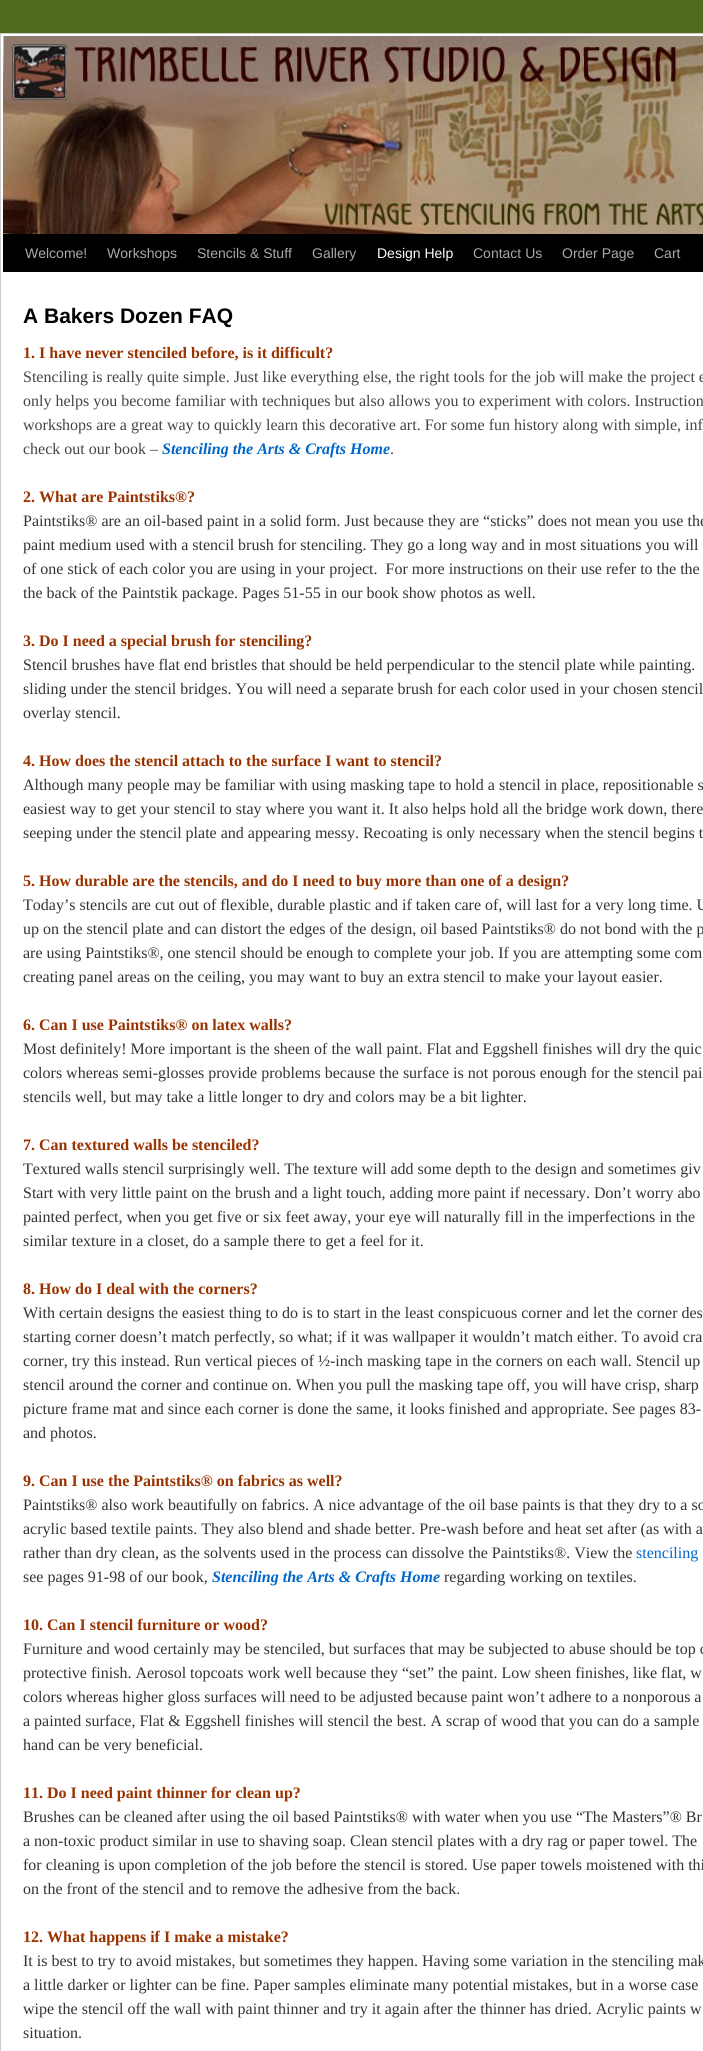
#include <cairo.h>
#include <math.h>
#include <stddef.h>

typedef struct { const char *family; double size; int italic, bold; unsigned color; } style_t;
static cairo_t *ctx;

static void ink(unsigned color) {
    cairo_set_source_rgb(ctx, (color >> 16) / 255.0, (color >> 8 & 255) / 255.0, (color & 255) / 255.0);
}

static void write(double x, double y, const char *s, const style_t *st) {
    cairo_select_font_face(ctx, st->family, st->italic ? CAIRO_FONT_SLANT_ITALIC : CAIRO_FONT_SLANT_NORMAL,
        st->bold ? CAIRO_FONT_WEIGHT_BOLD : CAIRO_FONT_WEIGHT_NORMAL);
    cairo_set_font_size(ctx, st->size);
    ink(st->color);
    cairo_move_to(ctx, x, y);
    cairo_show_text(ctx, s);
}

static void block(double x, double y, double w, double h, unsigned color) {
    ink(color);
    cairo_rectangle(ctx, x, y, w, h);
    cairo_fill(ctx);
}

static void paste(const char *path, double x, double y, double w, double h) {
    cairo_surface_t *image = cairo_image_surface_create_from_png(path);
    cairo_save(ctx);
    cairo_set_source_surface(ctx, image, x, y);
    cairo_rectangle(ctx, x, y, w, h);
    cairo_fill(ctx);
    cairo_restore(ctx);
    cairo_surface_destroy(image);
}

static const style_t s1 = {"Liberation Sans", 14, 0, 0, 0xaaaaaa};
static const style_t s2 = {"Liberation Sans", 14, 0, 0, 0xffffff};
static const style_t s3 = {"Liberation Sans", 21, 0, 1, 0x000000};
static const style_t s4 = {"Liberation Serif", 16, 0, 1, 0x993300};
static const style_t s5 = {"Liberation Serif", 16, 0, 0, 0x444444};
static const style_t s6 = {"Liberation Serif", 16, 1, 1, 0x0066cc};
static const style_t s7 = {"Liberation Serif", 16, 0, 0, 0x333333};
static const style_t s8 = {"Liberation Serif", 16, 0, 0, 0x0066cc};

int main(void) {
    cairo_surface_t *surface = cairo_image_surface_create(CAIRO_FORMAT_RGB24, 703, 2051);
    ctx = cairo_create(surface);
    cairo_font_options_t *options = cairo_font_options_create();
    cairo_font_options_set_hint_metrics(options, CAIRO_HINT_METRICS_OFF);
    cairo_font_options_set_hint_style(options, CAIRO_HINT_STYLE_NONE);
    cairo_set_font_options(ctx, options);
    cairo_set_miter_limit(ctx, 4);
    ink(0x506b1f);
    cairo_paint(ctx);
    ink(0xffffff);
    cairo_rectangle(ctx, 0.5, 33.5, 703, 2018);
    cairo_fill_preserve(ctx);
    ink(0xcccccc);
    cairo_set_line_width(ctx, 1);
    cairo_stroke(ctx);
    paste("pic1.png", 3, 36, 700, 198);
    block(3, 234, 700, 38, 0x000000);
    write(25, 258, "Welcome!", &s1);
    write(107, 258, "Workshops", &s1);
    write(197, 258, "Stencils & Stuff", &s1);
    write(312, 258, "Gallery", &s1);
    write(377, 258, "Design Help", &s2);
    write(473, 258, "Contact Us", &s1);
    write(562, 258, "Order Page", &s1);
    write(654, 258, "Cart", &s1);
    write(23, 323, "A Bakers Dozen FAQ", &s3);
    write(23, 358, "1. I have never stenciled before, is it difficult?", &s4);
    write(23, 382, "Stenciling is really quite simple. Just like everything else, the right tools for the job will make the project e", &s5);
    write(23, 406, "only helps you become familiar with techniques but also allows you to experiment with colors. Instruction", &s5);
    write(23, 430, "workshops are a great way to quickly learn this decorative art. For some fun history along with simple, inf", &s5);
    write(23, 454, "check out our book –", &s5);
    write(162, 454, "Stenciling the Arts & Crafts Home", &s6);
    write(390, 454, ".", &s5);
    write(23, 502, "2. What are Paintstiks®?", &s4);
    write(23, 526, "Paintstiks® are an oil-based paint in a solid form. Just because they are “sticks” does not mean you use the", &s7);
    write(23, 550, "paint medium used with a stencil brush for stenciling. They go a long way and in most situations you will", &s7);
    write(23, 574, "of one stick of each color you are using in your project.  For more instructions on their use refer to the the", &s7);
    write(23, 598, "the back of the Paintstik package. Pages 51-55 in our book show photos as well.", &s7);
    write(23, 646, "3. Do I need a special brush for stenciling?", &s4);
    write(23, 670, "Stencil brushes have flat end bristles that should be held perpendicular to the stencil plate while painting.", &s7);
    write(23, 694, "sliding under the stencil bridges. You will need a separate brush for each color used in your chosen stencil", &s7);
    write(23, 718, "overlay stencil.", &s7);
    write(23, 766, "4. How does the stencil attach to the surface I want to stencil?", &s4);
    write(23, 790, "Although many people may be familiar with using masking tape to hold a stencil in place, repositionable s", &s7);
    write(23, 814, "easiest way to get your stencil to stay where you want it. It also helps hold all the bridge work down, there", &s7);
    write(23, 838, "seeping under the stencil plate and appearing messy. Recoating is only necessary when the stencil begins t", &s7);
    write(23, 886, "5. How durable are the stencils, and do I need to buy more than one of a design?", &s4);
    write(23, 910, "Today’s stencils are cut out of flexible, durable plastic and if taken care of, will last for a very long time. U", &s7);
    write(23, 934, "up on the stencil plate and can distort the edges of the design, oil based Paintstiks® do not bond with the p", &s7);
    write(23, 958, "are using Paintstiks®, one stencil should be enough to complete your job. If you are attempting some com", &s7);
    write(23, 982, "creating panel areas on the ceiling, you may want to buy an extra stencil to make your layout easier.", &s7);
    write(23, 1030, "6. Can I use Paintstiks® on latex walls?", &s4);
    write(23, 1054, "Most definitely! More important is the sheen of the wall paint. Flat and Eggshell finishes will dry the quic", &s7);
    write(23, 1078, "colors whereas semi-glosses provide problems because the surface is not porous enough for the stencil pai", &s7);
    write(23, 1102, "stencils well, but may take a little longer to dry and colors may be a bit lighter.", &s7);
    write(23, 1150, "7. Can textured walls be stenciled?", &s4);
    write(23, 1174, "Textured walls stencil surprisingly well. The texture will add some depth to the design and sometimes giv", &s7);
    write(23, 1198, "Start with very little paint on the brush and a light touch, adding more paint if necessary. Don’t worry abo", &s7);
    write(23, 1222, "painted perfect, when you get five or six feet away, your eye will naturally fill in the imperfections in the", &s7);
    write(23, 1246, "similar texture in a closet, do a sample there to get a feel for it.", &s7);
    write(23, 1294, "8. How do I deal with the corners?", &s4);
    write(23, 1318, "With certain designs the easiest thing to do is to start in the least conspicuous corner and let the corner des", &s7);
    write(23, 1342, "starting corner doesn’t match perfectly, so what; if it was wallpaper it wouldn’t match either. To avoid cra", &s7);
    write(23, 1366, "corner, try this instead. Run vertical pieces of ½-inch masking tape in the corners on each wall. Stencil up", &s7);
    write(23, 1390, "stencil around the corner and continue on. When you pull the masking tape off, you will have crisp, sharp", &s7);
    write(23, 1414, "picture frame mat and since each corner is done the same, it looks finished and appropriate. See pages 83-", &s7);
    write(23, 1438, "and photos.", &s7);
    write(23, 1486, "9. Can I use the Paintstiks® on fabrics as well?", &s4);
    write(23, 1510, "Paintstiks® also work beautifully on fabrics. A nice advantage of the oil base paints is that they dry to a so", &s7);
    write(23, 1534, "acrylic based textile paints. They also blend and shade better. Pre-wash before and heat set after (as with a", &s7);
    write(23, 1558, "rather than dry clean, as the solvents used in the process can dissolve the Paintstiks®. View the", &s7);
    write(636, 1558, "stenciling", &s8);
    write(23, 1582, "see pages 91-98 of our book,", &s7);
    write(212, 1582, "Stenciling the Arts & Crafts Home", &s6);
    write(444, 1582, "regarding working on textiles.", &s7);
    write(23, 1630, "10. Can I stencil furniture or wood?", &s4);
    write(23, 1654, "Furniture and wood certainly may be stenciled, but surfaces that may be subjected to abuse should be top c", &s7);
    write(23, 1678, "protective finish. Aerosol topcoats work well because they “set” the paint. Low sheen finishes, like flat, w", &s7);
    write(23, 1702, "colors whereas higher gloss surfaces will need to be adjusted because paint won’t adhere to a nonporous a", &s7);
    write(23, 1726, "a painted surface, Flat & Eggshell finishes will stencil the best. A scrap of wood that you can do a sample", &s7);
    write(23, 1750, "hand can be very beneficial.", &s7);
    write(23, 1798, "11. Do I need paint thinner for clean up?", &s4);
    write(23, 1822, "Brushes can be cleaned after using the oil based Paintstiks® with water when you use “The Masters”® Br", &s7);
    write(23, 1846, "a non-toxic product similar in use to shaving soap. Clean stencil plates with a dry rag or paper towel. The", &s7);
    write(23, 1870, "for cleaning is upon completion of the job before the stencil is stored. Use paper towels moistened with thi", &s7);
    write(23, 1894, "on the front of the stencil and to remove the adhesive from the back.", &s7);
    write(23, 1942, "12. What happens if I make a mistake?", &s4);
    write(23, 1966, "It is best to try to avoid mistakes, but sometimes they happen. Having some variation in the stenciling mak", &s7);
    write(23, 1990, "a little darker or lighter can be fine. Paper samples eliminate many potential mistakes, but in a worse case", &s7);
    write(23, 2014, "wipe the stencil off the wall with paint thinner and try it again after the thinner has dried. Acrylic paints w", &s7);
    write(23, 2038, "situation.", &s7);
    cairo_surface_write_to_png(surface, "screenshot.png");
    cairo_font_options_destroy(options);
    cairo_destroy(ctx);
    cairo_surface_destroy(surface);
    return 0;
}
